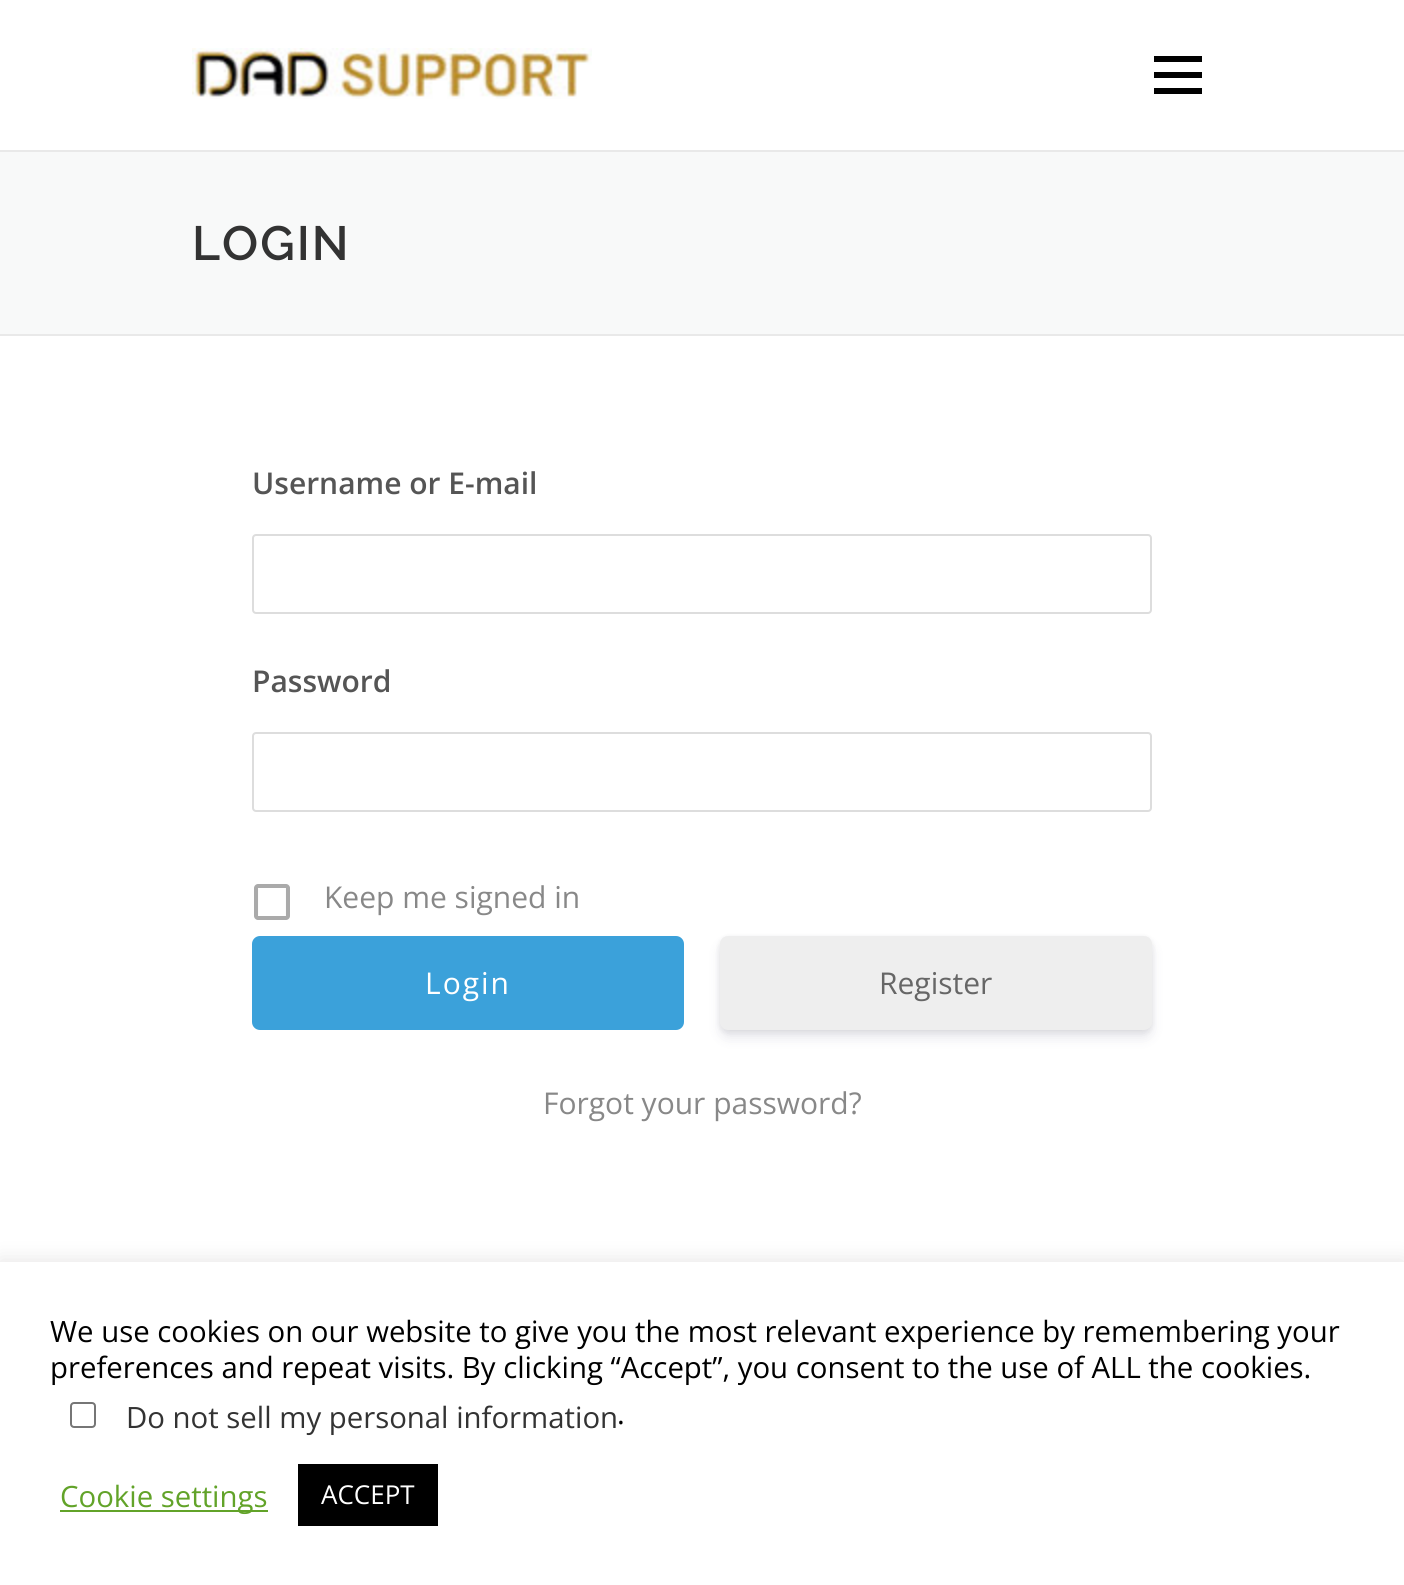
#include <cairo.h>
#include <math.h>
#include <stddef.h>

typedef struct { const char *family; double size; int italic, bold; unsigned color; } style_t;
static cairo_t *ctx;

static void ink(unsigned color) {
    cairo_set_source_rgb(ctx, (color >> 16) / 255.0, (color >> 8 & 255) / 255.0, (color & 255) / 255.0);
}

static void write(double x, double y, const char *s, const style_t *st) {
    cairo_select_font_face(ctx, st->family, st->italic ? CAIRO_FONT_SLANT_ITALIC : CAIRO_FONT_SLANT_NORMAL,
        st->bold ? CAIRO_FONT_WEIGHT_BOLD : CAIRO_FONT_WEIGHT_NORMAL);
    cairo_set_font_size(ctx, st->size);
    ink(st->color);
    cairo_move_to(ctx, x, y);
    cairo_show_text(ctx, s);
}

static void write_spaced(double x, double y, const char *s, double letter, double word) {
    cairo_move_to(ctx, x, y);
    while (*s) {
        char ch[5] = {0};
        int n = 0;
        do ch[n++] = *s++; while ((*s & 0xC0) == 0x80);
        cairo_show_text(ctx, ch);
        cairo_rel_move_to(ctx, letter + word * (*ch == ' '), 0);
    }
}

static void block(double x, double y, double w, double h, unsigned color) {
    ink(color);
    cairo_rectangle(ctx, x, y, w, h);
    cairo_fill(ctx);
}

static void round_path(double x, double y, double w, double h, double r) {
    cairo_new_sub_path(ctx);
    cairo_arc(ctx, x + w - r, y + h - r, r, 0, M_PI / 2);
    cairo_arc(ctx, x + r, y + h - r, r, M_PI / 2, M_PI);
    cairo_arc(ctx, x + r, y + r, r, M_PI, 1.5 * M_PI);
    cairo_arc(ctx, x + w - r, y + r, r, 1.5 * M_PI, 2 * M_PI);
    cairo_close_path(ctx);
}

static void blur_box(double x, double y, double w, double h, double r, double blur, double alpha) {
    cairo_push_group_with_content(ctx, CAIRO_CONTENT_ALPHA);
    cairo_set_operator(ctx, CAIRO_OPERATOR_SOURCE);
    for (int i = 15; i >= -15 && fmin(w, h) + blur * i / 3 > 0; i -= 2) {
        double e = blur * i / 6;
        cairo_set_source_rgba(ctx, 0, 0, 0, alpha * erfc((i - 1) / 8.5) / 2);
        round_path(x - e, y - e, w + 2 * e, h + 2 * e, fmax(0, fmin(r + e + blur * .6, fmin(w, h) / 2 + e)));
        cairo_fill(ctx);
    }
    cairo_pattern_t *soft = cairo_pop_group(ctx);
    cairo_mask(ctx, soft);
    cairo_pattern_destroy(soft);
}

static void paste(const char *path, double x, double y, double w, double h) {
    cairo_surface_t *image = cairo_image_surface_create_from_png(path);
    cairo_save(ctx);
    cairo_set_source_surface(ctx, image, x, y);
    cairo_rectangle(ctx, x, y, w, h);
    cairo_fill(ctx);
    cairo_restore(ctx);
    cairo_surface_destroy(image);
}

static const style_t s1 = {"Open Sans SemiBold", 30, 0, 0, 0x555555};
static const style_t s2 = {"Open Sans", 30, 0, 0, 0x888888};
static const style_t s3 = {"Open Sans", 30, 0, 0, 0x666666};
static const style_t s4 = {"Open Sans", 29.35, 0, 0, 0x000000};
static const style_t s5 = {"Open Sans", 29.35, 0, 0, 0x333333};
static const style_t s6 = {"Open Sans", 29.35, 0, 0, 0x62a329};
static const style_t s7 = {"Open Sans", 26, 0, 0, 0xffffff};

int main(void) {
    cairo_surface_t *surface = cairo_image_surface_create(CAIRO_FORMAT_RGB24, 1404, 1585);
    ctx = cairo_create(surface);
    cairo_font_options_t *options = cairo_font_options_create();
    cairo_font_options_set_hint_metrics(options, CAIRO_HINT_METRICS_OFF);
    cairo_font_options_set_hint_style(options, CAIRO_HINT_STYLE_NONE);
    cairo_set_font_options(ctx, options);
    cairo_set_miter_limit(ctx, 4);
    ink(0xffffff);
    cairo_paint(ctx);
    paste("pic1.png", 192, 48, 400, 51);
    block(1154, 72, 48, 6, 0x000000);
    block(1154, 56, 48, 6, 0x000000);
    block(1154, 88, 48, 6, 0x000000);
    block(0, 152, 1404, 182, 0xf8f9f9);
    block(0, 150, 1404, 2, 0xe9e9e9);
    block(0, 334, 1404, 2, 0xe9e9e9);
    cairo_select_font_face(ctx, "Raleway SemiBold", CAIRO_FONT_SLANT_NORMAL, CAIRO_FONT_WEIGHT_NORMAL);
    cairo_set_font_size(ctx, 48);
    ink(0x333333);
    write_spaced(192, 260, "LOGIN", 2, 0);
    write(252, 494, "Username or E-mail", &s1);
    round_path(253, 535, 898, 78, 3);
    ink(0xdddddd);
    cairo_stroke(ctx);
    write(252, 692, "Password", &s1);
    round_path(253, 733, 898, 78, 3);
    ink(0xdddddd);
    cairo_stroke(ctx);
    paste("pic2.png", 254, 884, 36, 36);
    write(324, 908, "Keep me signed in", &s2);
    ink(0x3ba1da);
    round_path(252, 936, 432, 94, 8);
    cairo_fill(ctx);
    ink(0xffffff);
    write_spaced(425, 994, "Login", 2, 0);
    ink(0x000000);
    blur_box(720, 938, 432, 94, 8, 3, 0.08);
    ink(0x32325d);
    blur_box(720, 944, 432, 94, 8, 6, 0.11);
    ink(0xeeeeee);
    round_path(720, 936, 432, 94, 8);
    cairo_fill(ctx);
    write(879, 994, "Register", &s3);
    write(543, 1114, "Forgot your password?", &s2);
    ink(0xacabab);
    blur_box(0, 1260, 1404, 324, 0, 10, 0.3);
    block(0, 1262, 1404, 323, 0xffffff);
    write(50, 1342, "We use cookies on our website to give you the most relevant experience by remembering your", &s4);
    write(50, 1378, "preferences and repeat visits. By clicking “Accept”, you consent to the use of ALL the cookies.", &s4);
    round_path(71, 1403, 24, 24, 3);
    ink(0x767676);
    cairo_stroke(ctx);
    write(126, 1428, "Do not sell my personal information", &s5);
    write(617, 1424, ".", &s4);
    block(60, 1510, 208, 2, 0x62a329);
    write(60, 1507, "Cookie settings", &s6);
    block(298, 1464, 140, 62, 0x000000);
    write(321, 1504, "ACCEPT", &s7);
    cairo_surface_write_to_png(surface, "screenshot.png");
    cairo_font_options_destroy(options);
    cairo_destroy(ctx);
    cairo_surface_destroy(surface);
    return 0;
}
